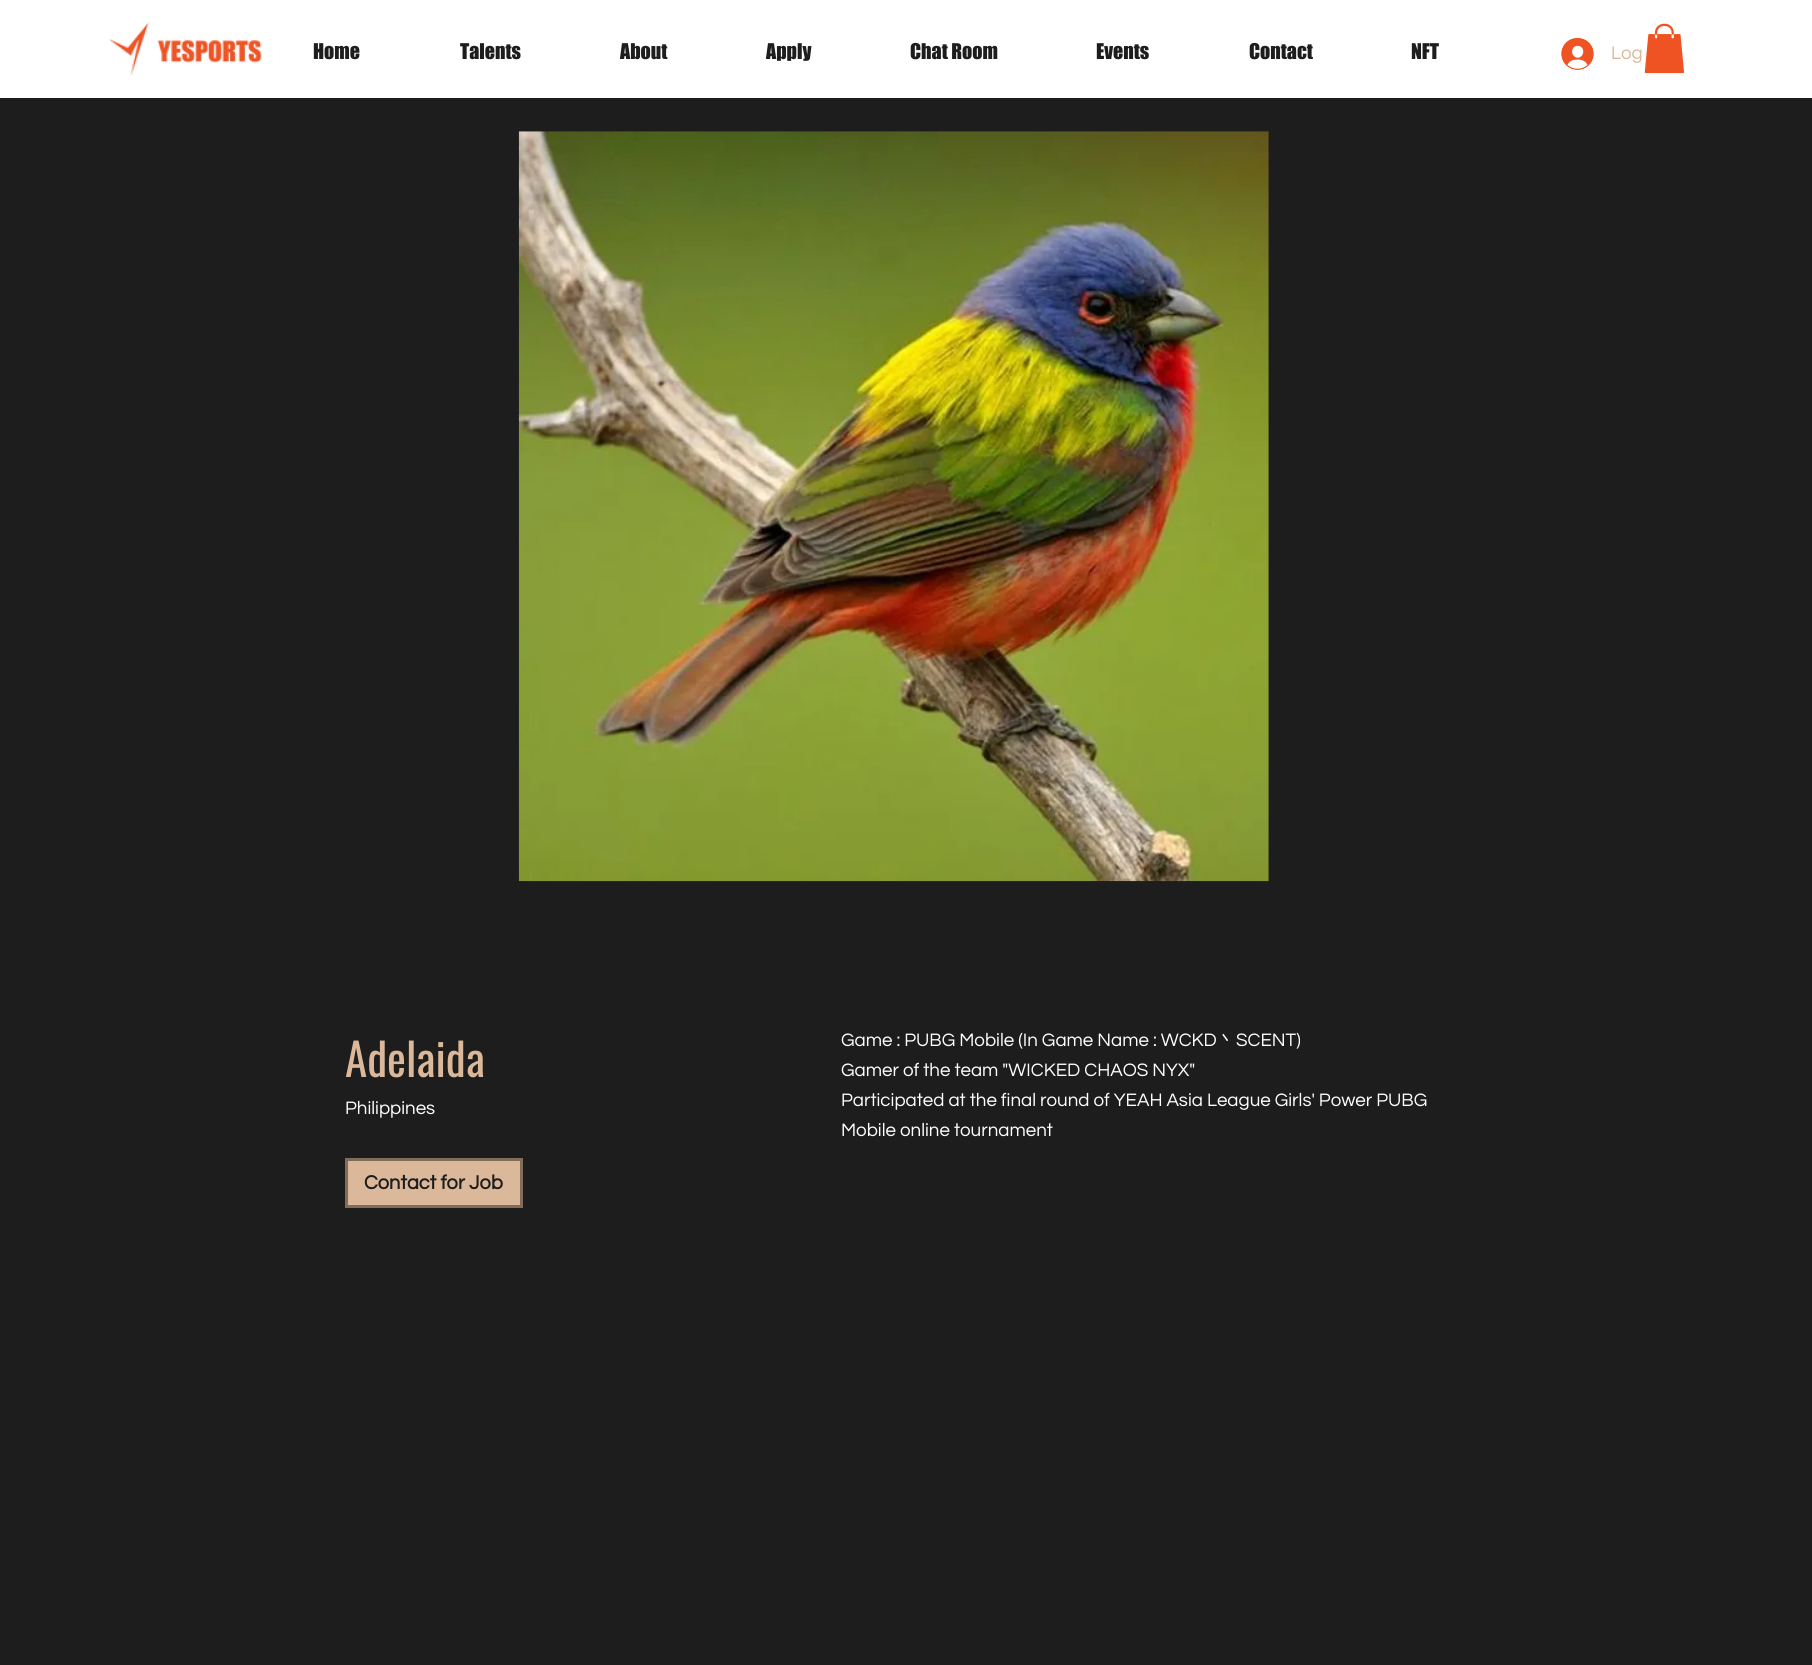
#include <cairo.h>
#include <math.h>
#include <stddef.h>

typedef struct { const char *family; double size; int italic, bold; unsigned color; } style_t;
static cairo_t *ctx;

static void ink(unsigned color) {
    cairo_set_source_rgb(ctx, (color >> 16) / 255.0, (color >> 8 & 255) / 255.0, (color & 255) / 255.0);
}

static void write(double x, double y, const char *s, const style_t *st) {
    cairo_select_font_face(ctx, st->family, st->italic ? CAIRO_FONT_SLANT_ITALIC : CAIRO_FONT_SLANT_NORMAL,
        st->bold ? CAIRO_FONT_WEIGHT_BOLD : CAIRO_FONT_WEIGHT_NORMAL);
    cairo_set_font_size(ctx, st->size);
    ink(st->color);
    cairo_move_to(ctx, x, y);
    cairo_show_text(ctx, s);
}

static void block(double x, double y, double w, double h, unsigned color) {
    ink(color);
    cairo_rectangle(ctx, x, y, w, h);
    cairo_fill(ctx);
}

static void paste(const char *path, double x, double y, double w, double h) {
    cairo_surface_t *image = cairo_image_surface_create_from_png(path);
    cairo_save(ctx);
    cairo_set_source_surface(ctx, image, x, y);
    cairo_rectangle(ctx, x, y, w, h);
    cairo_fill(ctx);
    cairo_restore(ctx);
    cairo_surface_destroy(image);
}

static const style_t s1 = {"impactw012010", 20, 0, 0, 0x1d1d1d};
static const style_t s2 = {"Questrial", 18.75, 0, 0, 0xdbb89a};
static const style_t s3 = {"Oswald", 45, 0, 0, 0xdbb89a};
static const style_t s4 = {"Questrial", 18.75, 0, 0, 0xffffff};
static const style_t s5 = {"WenQuanYi Zen Hei Medium", 18.75, 0, 0, 0xffffff};
static const style_t s6 = {"Questrial", 20, 0, 1, 0x1d1d1d};

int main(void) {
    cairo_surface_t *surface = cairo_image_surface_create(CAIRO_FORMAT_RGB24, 1812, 1665);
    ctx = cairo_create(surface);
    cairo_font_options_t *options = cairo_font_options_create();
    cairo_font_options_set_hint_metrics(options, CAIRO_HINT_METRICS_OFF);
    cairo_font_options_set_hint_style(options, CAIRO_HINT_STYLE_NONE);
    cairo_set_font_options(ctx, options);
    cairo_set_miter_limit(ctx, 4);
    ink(0x1d1d1d);
    cairo_paint(ctx);
    block(0, 0, 1812, 98, 0xffffff);
    paste("pic1.png", 108, 22, 154, 54);
    write(313, 59, "Home", &s1);
    write(460, 59, "Talents", &s1);
    write(620, 59, "About", &s1);
    write(766, 59, "Apply", &s1);
    write(910, 59, "Chat Room", &s1);
    write(1096, 59, "Events", &s1);
    write(1249, 59, "Contact", &s1);
    write(1411, 59, "NFT", &s1);
    paste("pic2.png", 1561, 38, 33, 32);
    write(1611, 59, "Log", &s2);
    paste("pic3.png", 1644, 23, 40, 51);
    paste("pic4.png", 518, 131, 751, 751);
    write(345, 1077, "Adelaida", &s3);
    write(841, 1046, "Game : PUBG Mobile (In Game Name : WCKD", &s4);
    write(1217, 1046, "丶", &s5);
    write(1236, 1046, "SCENT)", &s4);
    write(841, 1076, "Gamer of the team \"WICKED CHAOS NYX\"", &s4);
    write(841, 1106, "Participated at the final round of YEAH Asia League Girls' Power PUBG", &s4);
    write(841, 1136, "Mobile online tournament", &s4);
    write(345, 1114, "Philippines", &s4);
    ink(0xdbb89a);
    cairo_rectangle(ctx, 346.5, 1159.5, 175, 47);
    cairo_fill_preserve(ctx);
    ink(0x826c5a);
    cairo_set_line_width(ctx, 3);
    cairo_stroke(ctx);
    write(364, 1189, "Contact for Job", &s6);
    cairo_surface_write_to_png(surface, "screenshot.png");
    cairo_font_options_destroy(options);
    cairo_destroy(ctx);
    cairo_surface_destroy(surface);
    return 0;
}
